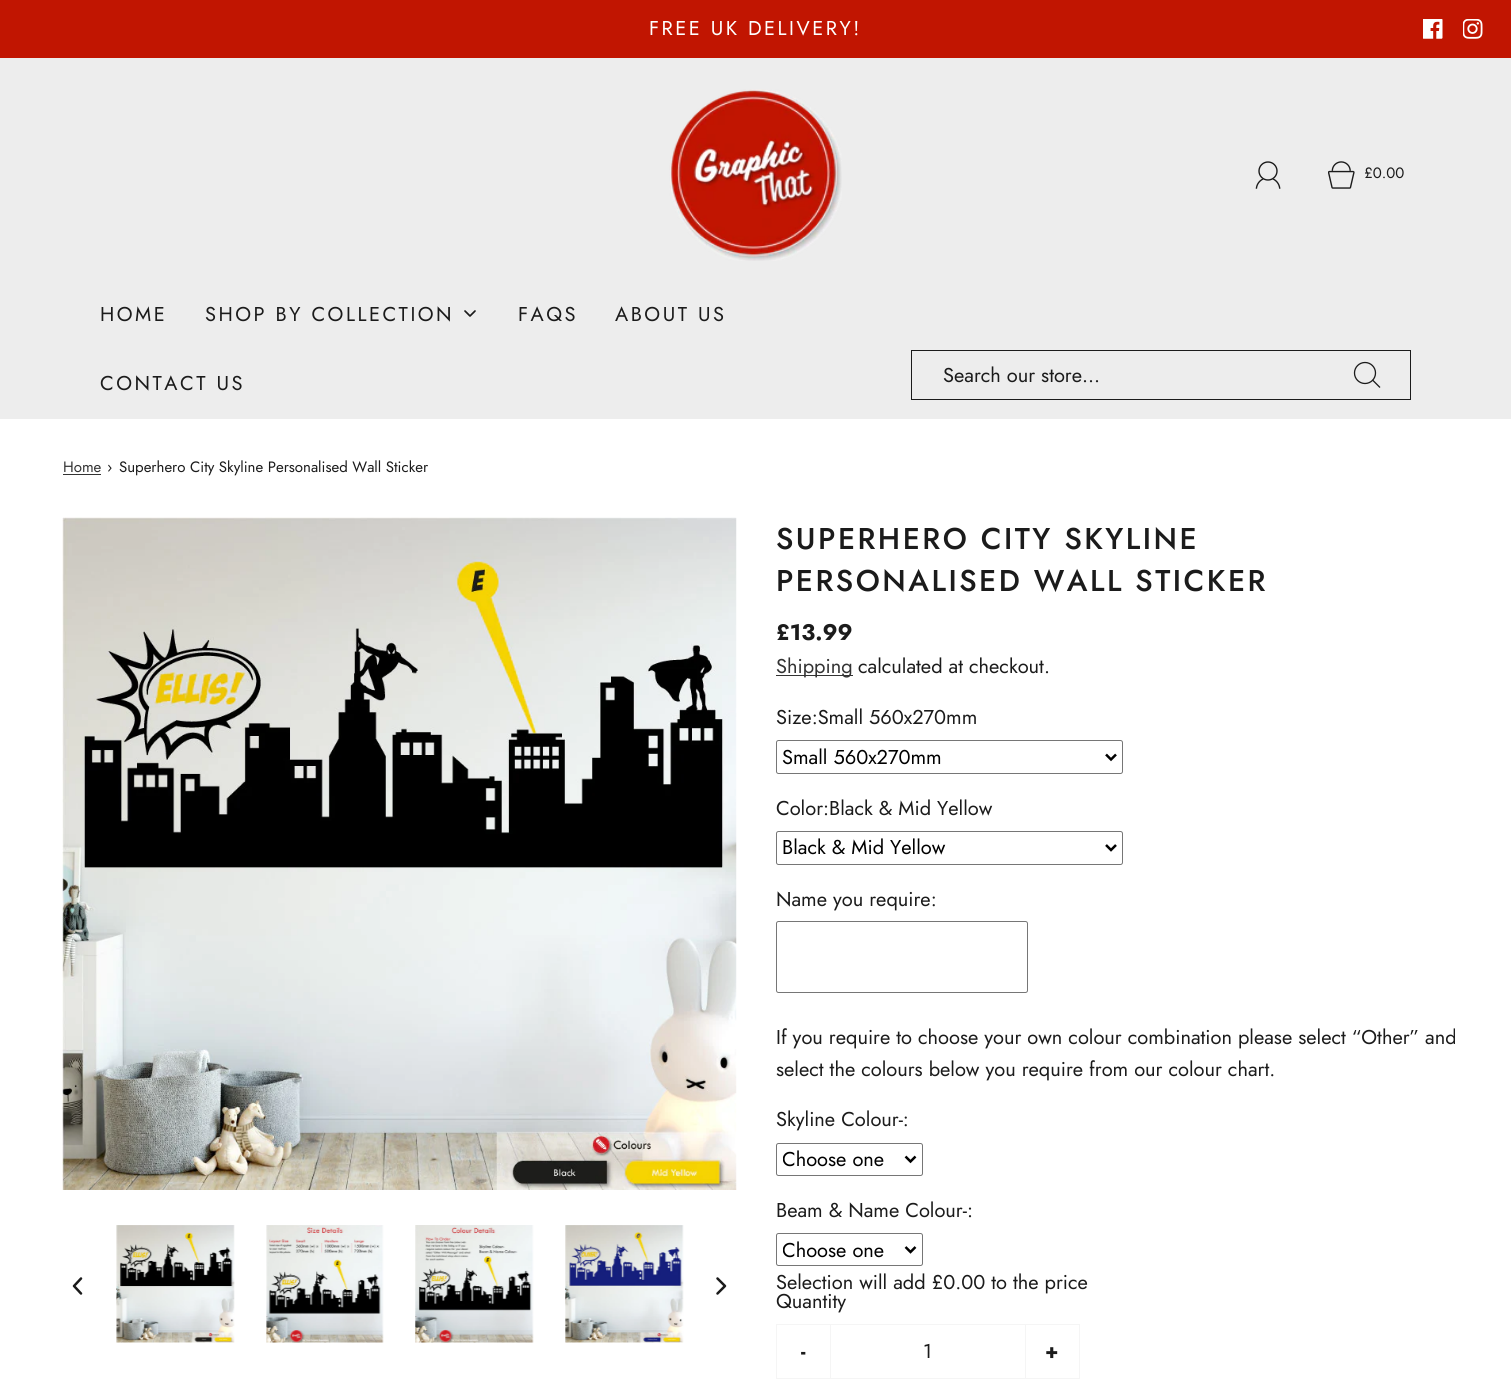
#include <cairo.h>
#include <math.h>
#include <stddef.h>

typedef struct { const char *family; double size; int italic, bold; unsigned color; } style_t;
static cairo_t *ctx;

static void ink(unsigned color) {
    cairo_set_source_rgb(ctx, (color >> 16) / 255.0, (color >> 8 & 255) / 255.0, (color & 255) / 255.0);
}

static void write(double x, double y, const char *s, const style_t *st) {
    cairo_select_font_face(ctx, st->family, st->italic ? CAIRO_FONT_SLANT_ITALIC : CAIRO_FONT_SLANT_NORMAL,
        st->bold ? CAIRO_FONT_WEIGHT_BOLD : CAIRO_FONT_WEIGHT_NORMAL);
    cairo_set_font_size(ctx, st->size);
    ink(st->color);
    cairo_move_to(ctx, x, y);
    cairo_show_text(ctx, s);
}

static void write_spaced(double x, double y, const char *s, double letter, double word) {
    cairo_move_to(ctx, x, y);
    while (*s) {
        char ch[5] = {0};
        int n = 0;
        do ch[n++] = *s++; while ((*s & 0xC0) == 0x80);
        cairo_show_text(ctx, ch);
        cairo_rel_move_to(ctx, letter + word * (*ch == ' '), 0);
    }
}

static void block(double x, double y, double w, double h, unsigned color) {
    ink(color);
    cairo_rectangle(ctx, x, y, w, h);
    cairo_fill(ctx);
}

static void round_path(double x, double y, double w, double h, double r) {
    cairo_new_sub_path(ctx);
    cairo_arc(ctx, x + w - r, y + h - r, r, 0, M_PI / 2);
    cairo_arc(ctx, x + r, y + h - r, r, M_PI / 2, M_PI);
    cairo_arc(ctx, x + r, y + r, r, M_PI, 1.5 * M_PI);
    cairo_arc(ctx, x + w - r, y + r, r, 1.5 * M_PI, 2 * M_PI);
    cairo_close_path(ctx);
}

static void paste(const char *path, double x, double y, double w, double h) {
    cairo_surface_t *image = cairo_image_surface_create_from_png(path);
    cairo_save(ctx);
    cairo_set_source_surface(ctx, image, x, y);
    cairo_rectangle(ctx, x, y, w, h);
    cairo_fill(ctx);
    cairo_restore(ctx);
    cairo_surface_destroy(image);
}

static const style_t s1 = {"Jost", 15, 0, 0, 0x1b1b1b};
static const style_t s2 = {"Jost", 20, 0, 0, 0x1b1b1b};
static const style_t s3 = {"Jost", 15, 0, 0, 0x333333};
static const style_t s4 = {"Jost", 22.5, 0, 1, 0x1b1b1b};
static const style_t s5 = {"Jost", 20, 0, 0, 0x333333};
static const style_t s6 = {"Jost", 20, 0, 0, 0x000000};
static const style_t s7 = {"Jost", 20, 0, 1, 0x1b1b1b};

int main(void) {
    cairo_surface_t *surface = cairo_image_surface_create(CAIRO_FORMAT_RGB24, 1511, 1384);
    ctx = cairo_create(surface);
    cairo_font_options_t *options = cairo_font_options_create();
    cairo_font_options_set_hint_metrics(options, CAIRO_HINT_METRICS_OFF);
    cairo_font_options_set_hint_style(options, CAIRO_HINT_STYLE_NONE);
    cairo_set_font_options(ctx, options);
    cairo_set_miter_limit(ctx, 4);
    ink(0xffffff);
    cairo_paint(ctx);
    block(0, 0, 1511, 58, 0xc11501);
    cairo_select_font_face(ctx, "Jost", CAIRO_FONT_SLANT_NORMAL, CAIRO_FONT_WEIGHT_NORMAL);
    cairo_set_font_size(ctx, 20);
    ink(0xffffff);
    write_spaced(649, 35, "FREE UK DELIVERY!", 2.5, 0);
    paste("pic1.png", 1423, 19, 20, 20);
    paste("pic2.png", 1463, 19, 20, 20);
    block(0, 58, 1511, 361, 0xededed);
    paste("pic3.png", 669, 89, 173, 172);
    paste("pic4.png", 1255, 161, 26, 28);
    paste("pic5.png", 1328, 161, 27, 28);
    write(1364, 178, "£0.00", &s1);
    cairo_set_font_size(ctx, 20);
    write_spaced(100, 321, "HOME", 2.5, 0);
    write_spaced(205, 321, "SHOP BY COLLECTION", 2.5, 0);
    cairo_new_path(ctx);
    cairo_move_to(ctx, 465, 311);
    cairo_line_to(ctx, 470, 316);
    cairo_line_to(ctx, 475, 311);
    cairo_set_line_width(ctx, 1.7);
    cairo_set_line_cap(ctx, CAIRO_LINE_CAP_ROUND);
    cairo_set_line_join(ctx, CAIRO_LINE_JOIN_ROUND);
    cairo_stroke(ctx);
    write_spaced(518, 321, "FAQS", 2.5, 0);
    write_spaced(615, 321, "ABOUT US", 2.5, 0);
    write_spaced(100, 390, "CONTACT US", 2.5, 0);
    cairo_rectangle(ctx, 911.5, 350.5, 499, 49);
    cairo_set_line_width(ctx, 1);
    cairo_set_line_cap(ctx, CAIRO_LINE_CAP_BUTT);
    cairo_set_line_join(ctx, CAIRO_LINE_JOIN_MITER);
    cairo_stroke(ctx);
    write(943, 382, "Search our store...", &s2);
    cairo_new_path(ctx);
    cairo_arc(ctx, 1365, 373, 10.5, 0, 2 * M_PI);
    cairo_set_line_width(ctx, 1.3);
    cairo_stroke(ctx);
    cairo_new_path(ctx);
    cairo_move_to(ctx, 1372.5, 380);
    cairo_line_to(ctx, 1380, 387.5);
    cairo_stroke(ctx);
    write(63, 472, "Home", &s3);
    block(63, 474, 38, 1, 0x333333);
    write(107, 472, "›", &s1);
    write(119, 472, "Superhero City Skyline Personalised Wall Sticker", &s1);
    paste("pic6.png", 62, 517, 675, 673);
    cairo_new_path(ctx);
    cairo_move_to(ctx, 81, 1293.5);
    cairo_line_to(ctx, 74, 1286);
    cairo_line_to(ctx, 81, 1278.5);
    cairo_set_line_width(ctx, 2.5);
    cairo_set_line_cap(ctx, CAIRO_LINE_CAP_ROUND);
    cairo_set_line_join(ctx, CAIRO_LINE_JOIN_ROUND);
    cairo_stroke(ctx);
    paste("pic7.png", 116, 1225, 119, 118);
    paste("pic8.png", 266, 1225, 118, 118);
    paste("pic9.png", 415, 1225, 119, 118);
    paste("pic10.png", 565, 1225, 119, 118);
    cairo_new_path(ctx);
    cairo_move_to(ctx, 717.5, 1293.5);
    cairo_line_to(ctx, 725, 1286);
    cairo_line_to(ctx, 717.5, 1278.5);
    cairo_stroke(ctx);
    cairo_select_font_face(ctx, "Jost Medium", CAIRO_FONT_SLANT_NORMAL, CAIRO_FONT_WEIGHT_NORMAL);
    cairo_set_font_size(ctx, 30);
    write_spaced(776, 549, "SUPERHERO CITY SKYLINE", 2.5, 0);
    write_spaced(776, 591, "PERSONALISED WALL STICKER", 2.5, 0);
    write(776, 640, "£13.99", &s4);
    block(776, 675, 77, 1, 0x333333);
    write(776, 673, "Shipping", &s5);
    write(858, 673, "calculated at checkout.", &s2);
    write(776, 724, "Size:Small 560x270mm", &s2);
    round_path(776.5, 740.5, 346, 33, 2);
    ink(0x767676);
    cairo_set_line_width(ctx, 1);
    cairo_set_line_cap(ctx, CAIRO_LINE_CAP_BUTT);
    cairo_set_line_join(ctx, CAIRO_LINE_JOIN_MITER);
    cairo_stroke(ctx);
    cairo_new_path(ctx);
    cairo_move_to(ctx, 1106, 754.5);
    cairo_line_to(ctx, 1111, 759.5);
    cairo_line_to(ctx, 1116, 754.5);
    ink(0x000000);
    cairo_set_line_width(ctx, 2.5);
    cairo_stroke(ctx);
    write(782, 764, "Small 560x270mm", &s6);
    write(776, 815, "Color:Black & Mid Yellow", &s2);
    round_path(776.5, 831.5, 346, 33, 2);
    ink(0x767676);
    cairo_set_line_width(ctx, 1);
    cairo_stroke(ctx);
    cairo_new_path(ctx);
    cairo_move_to(ctx, 1106, 845);
    cairo_line_to(ctx, 1111, 850);
    cairo_line_to(ctx, 1116, 845);
    ink(0x000000);
    cairo_set_line_width(ctx, 2.5);
    cairo_stroke(ctx);
    write(782, 854, "Black & Mid Yellow", &s6);
    write(776, 906, "Name you require:", &s2);
    round_path(776.5, 921.5, 251, 71, 2);
    ink(0x767676);
    cairo_set_line_width(ctx, 1);
    cairo_stroke(ctx);
    write(776, 1044, "If you require to choose your own colour combination please select “Other” and", &s2);
    write(776, 1076, "select the colours below you require from our colour chart.", &s2);
    write(776, 1126, "Skyline Colour-:", &s2);
    round_path(776.5, 1143.5, 146, 32, 2);
    ink(0x767676);
    cairo_stroke(ctx);
    cairo_new_path(ctx);
    cairo_move_to(ctx, 905.5, 1156.5);
    cairo_line_to(ctx, 910.5, 1161.5);
    cairo_line_to(ctx, 915.5, 1156.5);
    ink(0x000000);
    cairo_set_line_width(ctx, 2.5);
    cairo_stroke(ctx);
    cairo_save(ctx);
    cairo_rectangle(ctx, 783, 1144, 118, 31);
    cairo_clip(ctx);
    write(782, 1166, "Choose one", &s6);
    cairo_restore(ctx);
    write(776, 1217, "Beam & Name Colour-:", &s2);
    round_path(776.5, 1233.5, 146, 32, 2);
    ink(0x767676);
    cairo_set_line_width(ctx, 1);
    cairo_stroke(ctx);
    cairo_new_path(ctx);
    cairo_move_to(ctx, 905.5, 1247);
    cairo_line_to(ctx, 910.5, 1252);
    cairo_line_to(ctx, 915.5, 1247);
    ink(0x000000);
    cairo_set_line_width(ctx, 2.5);
    cairo_stroke(ctx);
    cairo_save(ctx);
    cairo_rectangle(ctx, 783, 1234, 118, 31);
    cairo_clip(ctx);
    write(782, 1257, "Choose one", &s6);
    cairo_restore(ctx);
    write(776, 1289, "Selection will add £0.00 to the price", &s2);
    write(776, 1308, "Quantity", &s2);
    cairo_rectangle(ctx, 776.5, 1324.5, 54, 54);
    ink(0xf5f5f5);
    cairo_set_line_width(ctx, 1);
    cairo_stroke(ctx);
    write(801, 1358, "-", &s7);
    block(831, 1324, 194, 1, 0xf5f5f5);
    block(831, 1378, 194, 1, 0xf5f5f5);
    write(923, 1358, "1", &s2);
    cairo_rectangle(ctx, 1025.5, 1324.5, 54, 54);
    ink(0xf5f5f5);
    cairo_stroke(ctx);
    write(1045, 1358, "+", &s7);
    cairo_surface_write_to_png(surface, "screenshot.png");
    cairo_font_options_destroy(options);
    cairo_destroy(ctx);
    cairo_surface_destroy(surface);
    return 0;
}
